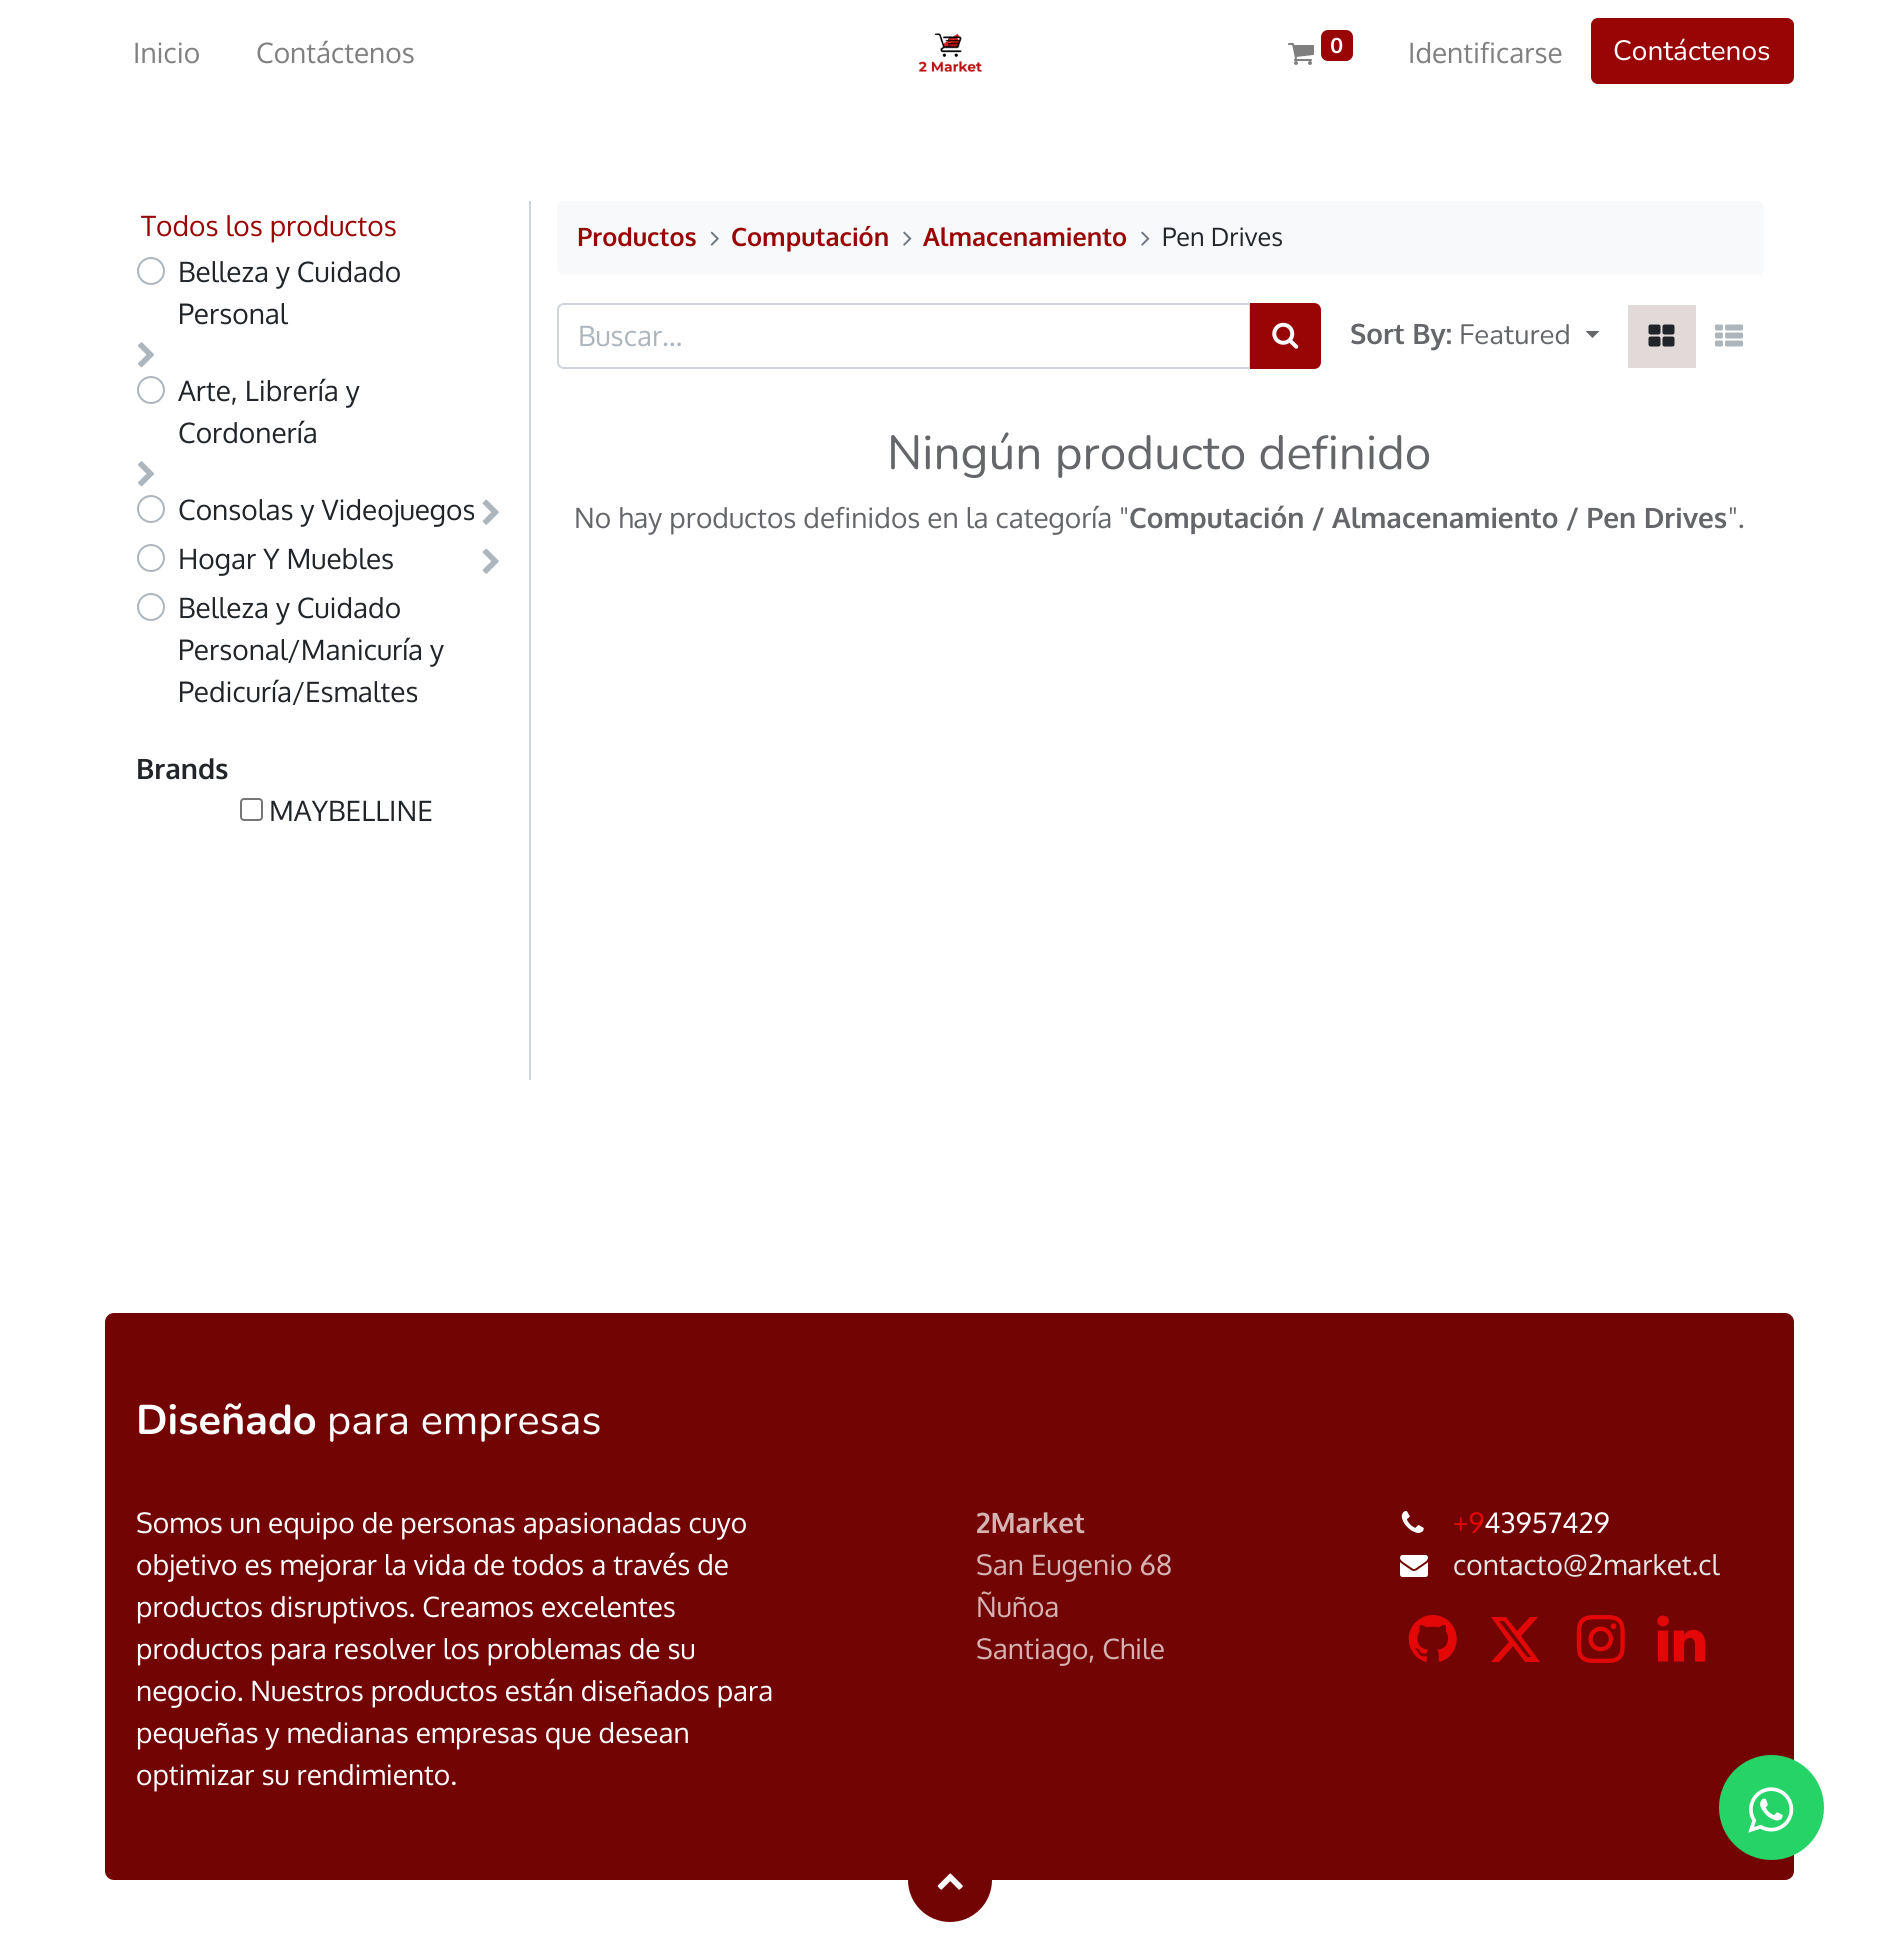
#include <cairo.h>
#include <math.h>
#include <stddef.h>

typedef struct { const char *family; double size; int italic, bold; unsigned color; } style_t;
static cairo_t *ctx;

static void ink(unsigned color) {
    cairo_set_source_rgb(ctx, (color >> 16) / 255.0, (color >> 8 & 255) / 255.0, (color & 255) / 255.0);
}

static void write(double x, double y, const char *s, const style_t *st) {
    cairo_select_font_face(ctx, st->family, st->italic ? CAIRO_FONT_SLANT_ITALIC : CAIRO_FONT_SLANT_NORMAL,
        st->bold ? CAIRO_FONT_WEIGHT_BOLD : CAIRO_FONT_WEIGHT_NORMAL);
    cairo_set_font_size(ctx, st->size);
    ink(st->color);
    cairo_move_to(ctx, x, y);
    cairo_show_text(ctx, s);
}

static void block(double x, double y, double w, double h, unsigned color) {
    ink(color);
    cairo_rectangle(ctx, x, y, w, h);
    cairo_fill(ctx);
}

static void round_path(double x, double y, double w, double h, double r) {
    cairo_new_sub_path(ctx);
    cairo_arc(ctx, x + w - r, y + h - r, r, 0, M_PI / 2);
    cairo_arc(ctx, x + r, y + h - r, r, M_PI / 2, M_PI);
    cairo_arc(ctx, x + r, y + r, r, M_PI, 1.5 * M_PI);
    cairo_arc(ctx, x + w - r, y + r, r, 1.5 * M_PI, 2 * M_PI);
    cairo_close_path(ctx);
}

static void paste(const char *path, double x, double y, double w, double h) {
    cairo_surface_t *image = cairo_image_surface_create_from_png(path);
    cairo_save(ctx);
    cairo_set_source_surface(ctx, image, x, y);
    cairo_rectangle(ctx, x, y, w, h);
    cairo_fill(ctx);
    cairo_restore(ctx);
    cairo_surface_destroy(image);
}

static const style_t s1 = {"Oxygen", 28, 0, 0, 0x808080};
static const style_t s2 = {"Oxygen", 21, 0, 1, 0xffffff};
static const style_t s3 = {"Nunito", 28, 0, 0, 0xffffff};
static const style_t s4 = {"Oxygen", 28, 0, 0, 0x990505};
static const style_t s5 = {"Oxygen", 28, 0, 0, 0x212529};
static const style_t s6 = {"Oxygen", 28, 0, 1, 0x212529};
static const style_t s7 = {"Oxygen", 25.25, 0, 1, 0x990505};
static const style_t s8 = {"Oxygen", 25.25, 0, 0, 0x212529};
static const style_t s9 = {"Oxygen", 28, 0, 0, 0xadb5bd};
static const style_t s10 = {"Oxygen", 28, 0, 1, 0x646669};
static const style_t s11 = {"Nunito", 28, 0, 0, 0x646669};
static const style_t s12 = {"Nunito", 47.75, 0, 0, 0x646669};
static const style_t s13 = {"Oxygen", 28, 0, 0, 0x646669};
static const style_t s14 = {"Nunito", 41.5, 0, 1, 0xffffff};
static const style_t s15 = {"Nunito", 41.5, 0, 0, 0xffffff};
static const style_t s16 = {"Oxygen", 28, 0, 0, 0xffffff};
static const style_t s17 = {"Oxygen", 28, 0, 1, 0xd5b4b4};
static const style_t s18 = {"Oxygen", 28, 0, 0, 0xd5b4b4};
static const style_t s19 = {"Oxygen", 28, 0, 0, 0xe30707};
static const style_t s20 = {"Oxygen", 28, 0, 0, 0xe6e6e6};

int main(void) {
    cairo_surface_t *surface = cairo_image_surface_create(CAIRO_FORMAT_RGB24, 1898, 1935);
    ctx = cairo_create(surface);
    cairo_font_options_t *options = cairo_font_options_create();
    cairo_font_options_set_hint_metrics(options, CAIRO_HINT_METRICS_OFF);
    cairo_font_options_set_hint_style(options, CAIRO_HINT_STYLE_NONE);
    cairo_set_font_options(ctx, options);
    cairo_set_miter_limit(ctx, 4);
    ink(0xffffff);
    cairo_paint(ctx);
    write(133, 63, "Inicio", &s1);
    write(256, 63, "Contáctenos", &s1);
    paste("pic1.png", 918, 33, 64, 39);
    paste("pic2.png", 1288, 43, 26, 22);
    ink(0x990505);
    round_path(1321, 30, 32, 31, 7);
    cairo_fill(ctx);
    write(1330, 53, "0", &s2);
    write(1408, 63, "Identificarse", &s1);
    ink(0x990505);
    round_path(1592, 19, 201, 64, 6);
    cairo_fill_preserve(ctx);
    cairo_stroke(ctx);
    write(1613, 60, "Contáctenos", &s3);
    block(529, 201, 2, 879, 0xced4da);
    write(141, 236, "Todos los productos", &s4);
    cairo_new_path(ctx);
    cairo_arc(ctx, 151, 271, 13, 0, 2 * M_PI);
    ink(0xadb5bd);
    cairo_stroke(ctx);
    write(178, 282, "Belleza y Cuidado", &s5);
    write(178, 324, "Personal", &s5);
    paste("pic3.png", 138, 342, 16, 26);
    cairo_arc(ctx, 151, 390, 13, 0, 2 * M_PI);
    ink(0xadb5bd);
    cairo_stroke(ctx);
    write(178, 401, "Arte, Librería y", &s5);
    write(178, 443, "Cordonería", &s5);
    paste("pic3.png", 138, 461, 16, 26);
    cairo_arc(ctx, 151, 509, 13, 0, 2 * M_PI);
    ink(0xadb5bd);
    cairo_stroke(ctx);
    write(178, 520, "Consolas y Videojuegos", &s5);
    paste("pic4.png", 482, 499, 17, 26);
    cairo_arc(ctx, 151, 558, 13, 0, 2 * M_PI);
    ink(0xadb5bd);
    cairo_stroke(ctx);
    write(178, 569, "Hogar Y Muebles", &s5);
    paste("pic4.png", 482, 548, 17, 26);
    cairo_arc(ctx, 151, 607, 13, 0, 2 * M_PI);
    ink(0xadb5bd);
    cairo_stroke(ctx);
    write(178, 618, "Belleza y Cuidado", &s5);
    write(178, 660, "Personal/Manicuría y", &s5);
    write(178, 702, "Pedicuría/Esmaltes", &s5);
    write(136, 779, "Brands", &s6);
    round_path(241, 799, 21, 21, 3);
    ink(0x767676);
    cairo_stroke(ctx);
    write(269, 821, "MAYBELLINE", &s5);
    ink(0xf8f9fa);
    round_path(557, 201, 1207, 74, 7);
    cairo_fill(ctx);
    write(577, 246, "Productos", &s7);
    paste("pic5.png", 710, 231, 9, 15);
    write(731, 246, "Computación", &s7);
    paste("pic6.png", 903, 231, 9, 15);
    write(923, 246, "Almacenamiento", &s7);
    paste("pic6.png", 1141, 231, 9, 15);
    write(1162, 246, "Pen Drives", &s8);
    cairo_new_path(ctx);
    cairo_move_to(ctx, 564, 304);
    cairo_line_to(ctx, 1250, 304);
    cairo_line_to(ctx, 1250, 368);
    cairo_line_to(ctx, 564, 368);
    cairo_curve_to(ctx, 560.5, 368, 558, 365.5, 558, 362);
    cairo_line_to(ctx, 558, 310);
    cairo_curve_to(ctx, 558, 306.5, 560.5, 304, 564, 304);
    cairo_close_path(ctx);
    ink(0xced4da);
    cairo_stroke(ctx);
    write(578, 346, "Buscar…", &s9);
    ink(0x990505);
    cairo_new_path(ctx);
    cairo_move_to(ctx, 1251, 304);
    cairo_line_to(ctx, 1314, 304);
    cairo_curve_to(ctx, 1317.5, 304, 1320, 306.5, 1320, 310);
    cairo_line_to(ctx, 1320, 362);
    cairo_curve_to(ctx, 1320, 365.5, 1317.5, 368, 1314, 368);
    cairo_line_to(ctx, 1251, 368);
    cairo_close_path(ctx);
    cairo_fill_preserve(ctx);
    cairo_stroke(ctx);
    paste("pic7.png", 1272, 322, 27, 27);
    write(1350, 344, "Sort By:", &s10);
    write(1459, 344, "Featured", &s11);
    cairo_new_path(ctx);
    cairo_move_to(ctx, 1585.5, 331);
    cairo_line_to(ctx, 1599.5, 331);
    cairo_line_to(ctx, 1592.5, 338);
    cairo_close_path(ctx);
    cairo_fill(ctx);
    block(1628, 305, 68, 63, 0xe2d9d9);
    paste("pic8.png", 1648, 324, 27, 23);
    paste("pic9.png", 1715, 324, 28, 23);
    write(887, 469, "Ningún producto definido", &s12);
    write(574, 528, "No hay productos definidos en la categoría \"", &s13);
    write(1129, 528, "Computación / Almacenamiento / Pen Drives", &s10);
    write(1728, 528, "\".", &s13);
    ink(0x730404);
    round_path(105, 1313, 1689, 567, 9);
    cairo_fill(ctx);
    write(136, 1434, "Diseñado", &s14);
    write(327, 1434, "para empresas", &s15);
    write(136, 1533, "Somos un equipo de personas apasionadas cuyo", &s16);
    write(136, 1575, "objetivo es mejorar la vida de todos a través de", &s16);
    write(136, 1617, "productos disruptivos. Creamos excelentes", &s16);
    write(136, 1659, "productos para resolver los problemas de su", &s16);
    write(136, 1701, "negocio. Nuestros productos están diseñados para", &s16);
    write(136, 1743, "pequeñas y medianas empresas que desean", &s16);
    write(136, 1785, "optimizar su rendimiento.", &s16);
    write(976, 1533, "2Market", &s17);
    write(976, 1575, "San Eugenio 68", &s18);
    write(976, 1617, "Ñuñoa", &s18);
    write(976, 1659, "Santiago, Chile", &s18);
    paste("pic10.png", 1401, 1511, 23, 22);
    write(1453, 1533, "+9", &s19);
    write(1484, 1533, "43957429", &s16);
    paste("pic11.png", 1400, 1555, 28, 22);
    write(1453, 1575, "contacto@2market.cl", &s20);
    paste("pic12.png", 1408, 1615, 49, 47);
    ink(0xe30707);
    cairo_new_path(ctx);
    cairo_move_to(ctx, 1530, 1617);
    cairo_line_to(ctx, 1538, 1617);
    cairo_line_to(ctx, 1521, 1636);
    cairo_line_to(ctx, 1540, 1662);
    cairo_line_to(ctx, 1525, 1662);
    cairo_line_to(ctx, 1513, 1646);
    cairo_line_to(ctx, 1499, 1662);
    cairo_line_to(ctx, 1491, 1662);
    cairo_line_to(ctx, 1509, 1642);
    cairo_line_to(ctx, 1491, 1617);
    cairo_line_to(ctx, 1506, 1617);
    cairo_line_to(ctx, 1517, 1631);
    cairo_close_path(ctx);
    cairo_move_to(ctx, 1527, 1657);
    cairo_line_to(ctx, 1531, 1657);
    cairo_line_to(ctx, 1504, 1621);
    cairo_line_to(ctx, 1499, 1621);
    cairo_close_path(ctx);
    cairo_fill(ctx);
    paste("pic13.png", 1576, 1615, 49, 48);
    paste("pic14.png", 1657, 1615, 49, 47);
    ink(0x25d366);
    cairo_arc(ctx, 1771.5, 1807.5, 52.5, 0, 2 * M_PI);
    cairo_fill(ctx);
    paste("pic15.png", 1748, 1787, 46, 46);
    ink(0x730404);
    cairo_arc(ctx, 950, 1880, 42, 0, 2 * M_PI);
    cairo_fill(ctx);
    paste("pic16.png", 937, 1873, 26, 17);
    cairo_surface_write_to_png(surface, "screenshot.png");
    cairo_font_options_destroy(options);
    cairo_destroy(ctx);
    cairo_surface_destroy(surface);
    return 0;
}
